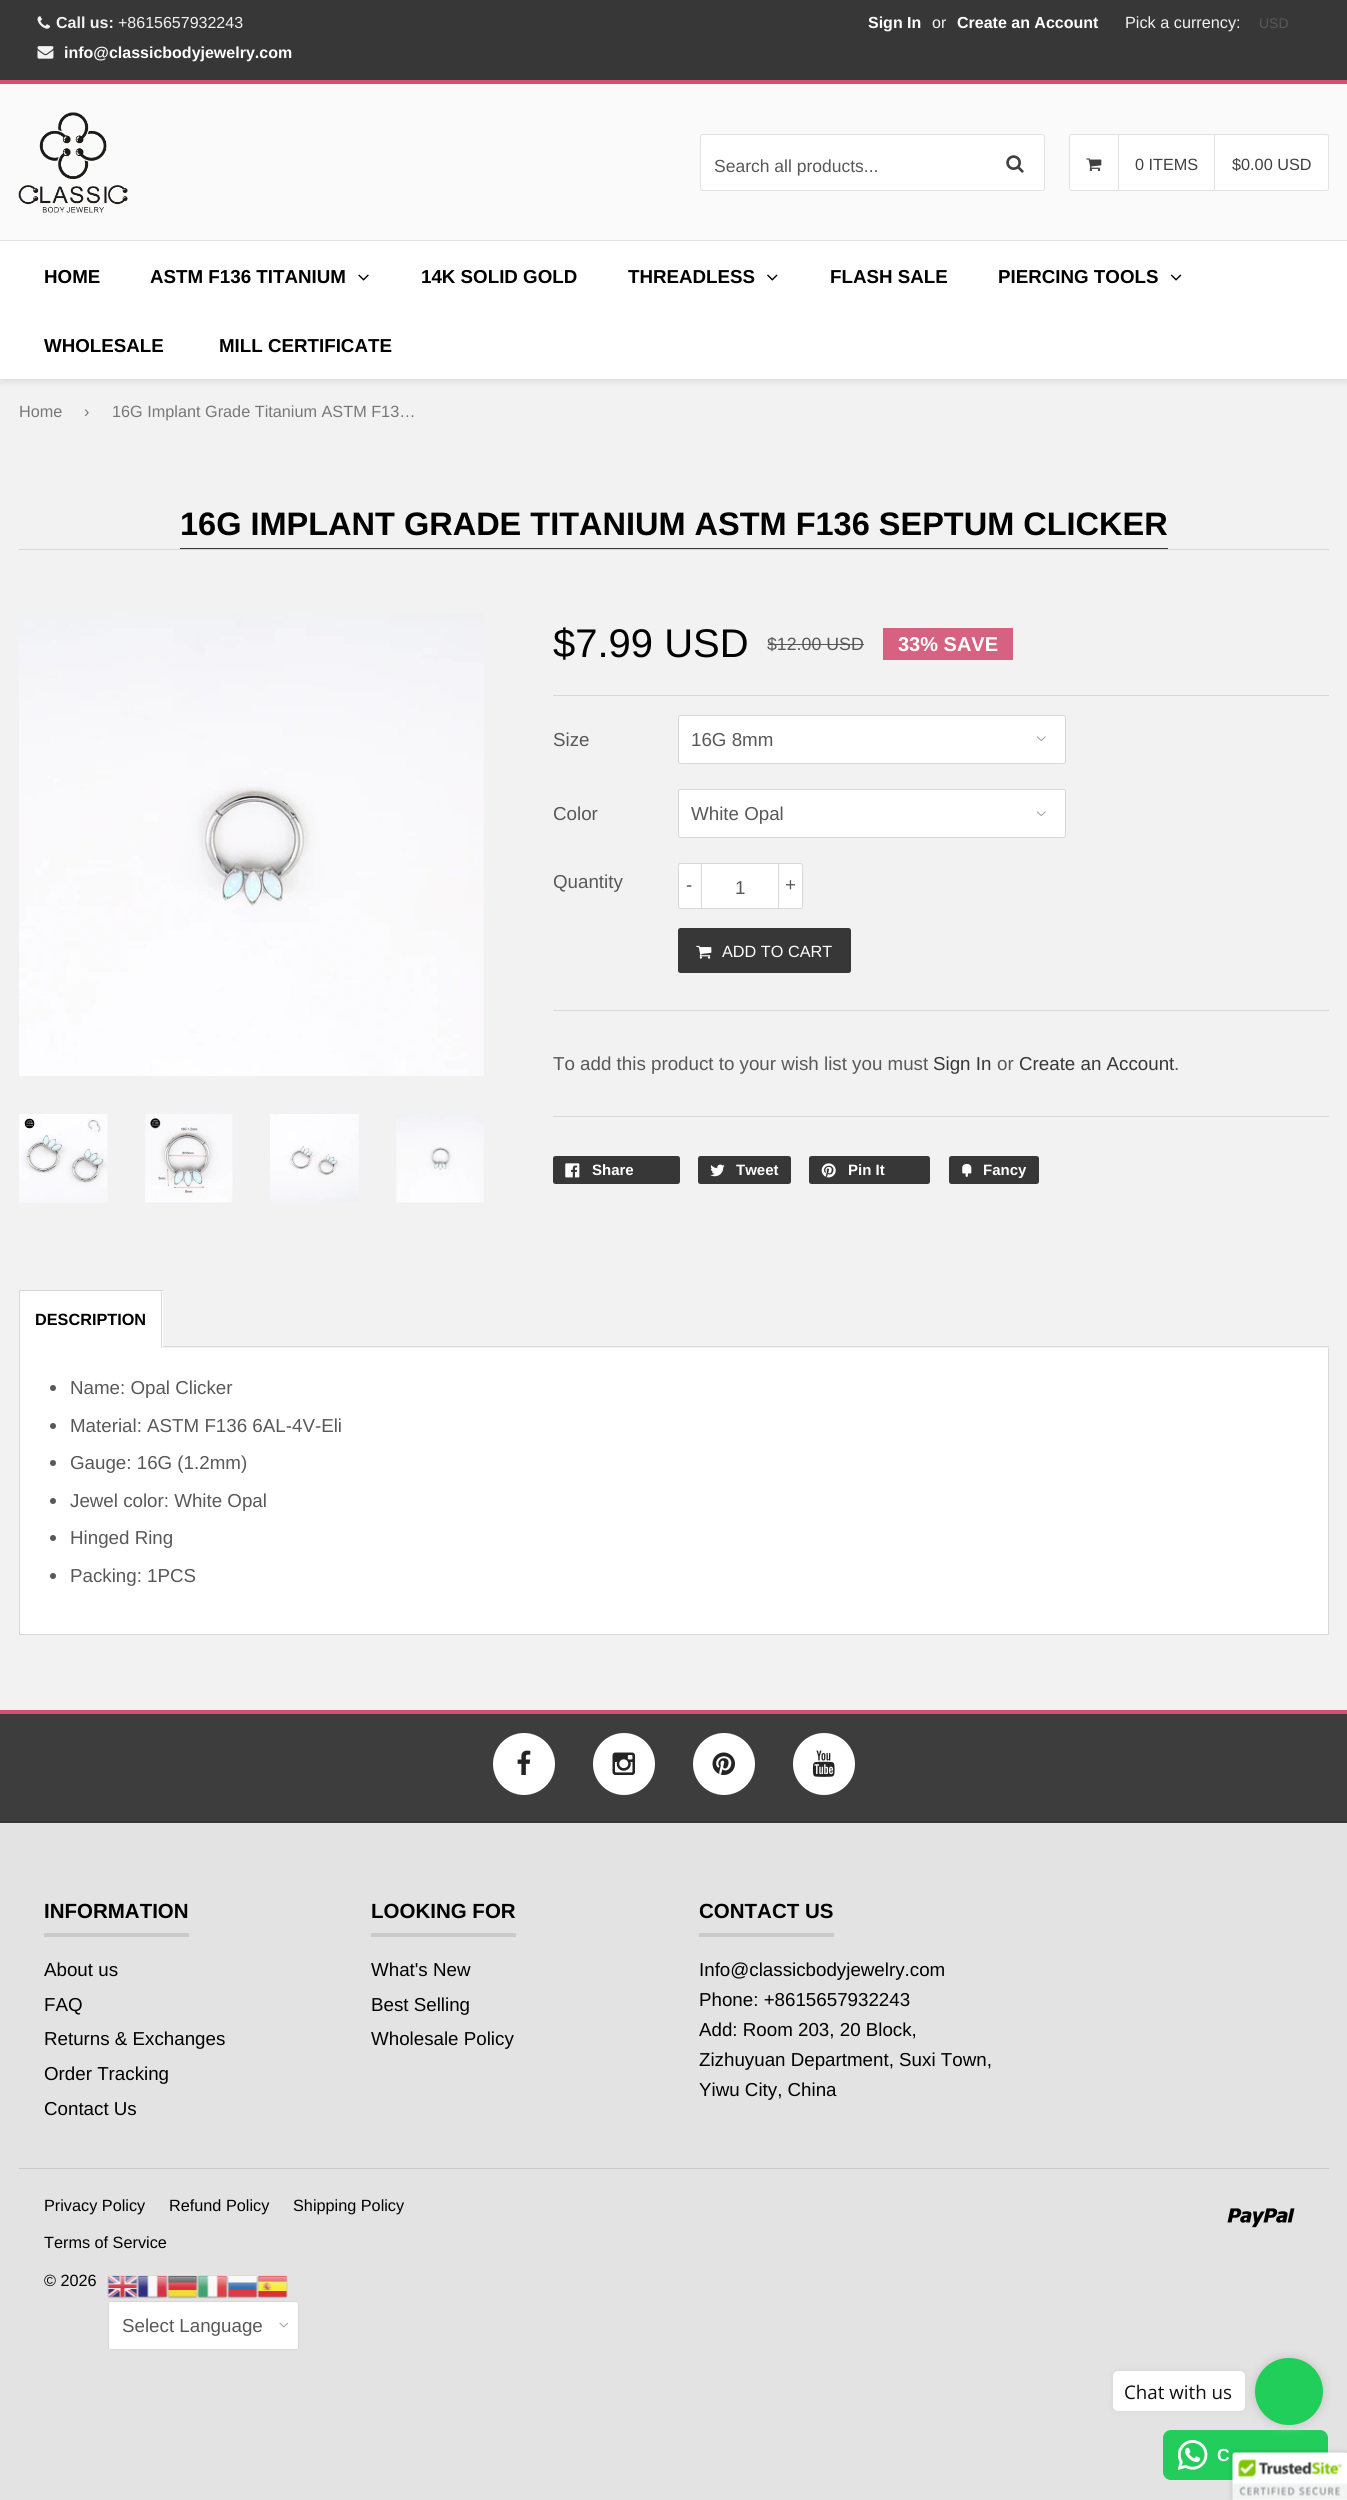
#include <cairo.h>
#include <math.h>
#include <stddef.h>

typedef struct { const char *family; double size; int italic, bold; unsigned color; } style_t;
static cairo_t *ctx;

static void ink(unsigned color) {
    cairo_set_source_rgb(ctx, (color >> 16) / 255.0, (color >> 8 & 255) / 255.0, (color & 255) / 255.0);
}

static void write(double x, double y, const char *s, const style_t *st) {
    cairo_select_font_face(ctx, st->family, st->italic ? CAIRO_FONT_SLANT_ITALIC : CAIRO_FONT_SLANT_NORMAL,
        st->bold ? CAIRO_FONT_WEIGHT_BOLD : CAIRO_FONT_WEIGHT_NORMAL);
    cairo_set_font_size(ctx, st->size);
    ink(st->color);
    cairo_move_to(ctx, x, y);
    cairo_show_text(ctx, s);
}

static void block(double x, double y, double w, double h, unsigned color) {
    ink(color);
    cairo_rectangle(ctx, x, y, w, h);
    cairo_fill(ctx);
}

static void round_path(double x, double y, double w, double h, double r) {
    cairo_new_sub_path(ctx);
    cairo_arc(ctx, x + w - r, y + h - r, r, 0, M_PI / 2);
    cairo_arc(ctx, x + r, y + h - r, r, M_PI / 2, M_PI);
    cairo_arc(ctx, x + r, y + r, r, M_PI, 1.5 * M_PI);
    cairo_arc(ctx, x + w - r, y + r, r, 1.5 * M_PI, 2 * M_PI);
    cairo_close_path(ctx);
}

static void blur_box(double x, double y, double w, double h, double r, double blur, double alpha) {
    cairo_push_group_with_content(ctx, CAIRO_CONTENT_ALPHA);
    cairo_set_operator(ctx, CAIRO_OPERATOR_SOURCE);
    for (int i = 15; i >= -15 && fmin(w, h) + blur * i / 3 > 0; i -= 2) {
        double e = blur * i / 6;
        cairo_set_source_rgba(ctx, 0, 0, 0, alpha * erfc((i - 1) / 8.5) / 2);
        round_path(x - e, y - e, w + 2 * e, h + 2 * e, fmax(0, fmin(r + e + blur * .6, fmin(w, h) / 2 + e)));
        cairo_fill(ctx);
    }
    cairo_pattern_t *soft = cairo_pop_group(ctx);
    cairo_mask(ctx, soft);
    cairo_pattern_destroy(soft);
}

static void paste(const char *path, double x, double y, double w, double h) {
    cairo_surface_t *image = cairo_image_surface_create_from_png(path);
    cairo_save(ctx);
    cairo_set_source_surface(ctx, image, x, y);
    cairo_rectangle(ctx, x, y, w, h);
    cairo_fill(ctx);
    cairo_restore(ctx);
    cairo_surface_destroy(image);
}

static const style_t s1 = {"Liberation Sans", 16, 0, 1, 0xf2f2f2};
static const style_t s2 = {"Liberation Sans", 16, 0, 0, 0xf2f2f2};
static const style_t s3 = {"Liberation Sans", 16, 0, 1, 0xffffff};
static const style_t s4 = {"Liberation Sans", 16.25, 0, 0, 0xf2f2f2};
static const style_t s5 = {"Liberation Sans", 14, 0, 0, 0x585858};
static const style_t s6 = {"Liberation Sans", 17.5, 0, 0, 0x585858};
static const style_t s7 = {"Liberation Sans", 16.25, 0, 0, 0x404042};
static const style_t s8 = {"Liberation Sans", 18.75, 0, 1, 0x000000};
static const style_t s9 = {"Liberation Sans", 16.25, 0, 0, 0x777777};
static const style_t s10 = {"Liberation Sans", 32.5, 0, 1, 0x000000};
static const style_t s11 = {"Liberation Sans", 40, 0, 0, 0x000000};
static const style_t s12 = {"Liberation Sans", 17.75, 0, 0, 0x585858};
static const style_t s13 = {"Liberation Sans", 20, 0, 1, 0xffffff};
static const style_t s14 = {"Liberation Sans", 18.75, 0, 0, 0x585858};
static const style_t s15 = {"Liberation Sans", 16.25, 0, 0, 0xffffff};
static const style_t s16 = {"Liberation Sans", 18.75, 0, 0, 0x373738};
static const style_t s17 = {"Liberation Sans", 15, 0, 1, 0xffffff};
static const style_t s18 = {"Liberation Sans", 16.25, 0, 1, 0x000000};
static const style_t s19 = {"Liberation Sans", 20.5, 0, 1, 0x000000};
static const style_t s20 = {"Liberation Sans", 18.75, 0, 0, 0x000000};
static const style_t s21 = {"Liberation Sans", 16.25, 0, 0, 0x000000};
static const style_t s22 = {"Open Sans", 18.75, 0, 0, 0x111111};
static const style_t s23 = {"Liberation Sans", 17.5, 0, 1, 0xffffff};

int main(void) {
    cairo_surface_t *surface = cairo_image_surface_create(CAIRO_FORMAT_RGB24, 1347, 2500);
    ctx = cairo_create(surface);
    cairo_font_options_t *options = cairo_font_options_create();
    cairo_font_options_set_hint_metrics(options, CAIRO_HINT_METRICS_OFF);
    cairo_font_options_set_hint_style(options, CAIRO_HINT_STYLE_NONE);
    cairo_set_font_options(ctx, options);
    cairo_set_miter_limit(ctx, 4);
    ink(0xe3e3e3);
    cairo_paint(ctx);
    block(0, 380, 1347, 1330, 0xf2f2f2);
    block(0, 0, 1347, 80, 0x373738);
    block(0, 80, 1347, 4, 0xd45174);
    paste("pic1.png", 37, 16, 13, 13);
    write(56, 28, "Call us:", &s1);
    write(118, 28, "+8615657932243", &s2);
    paste("pic2.png", 37, 46, 17, 13);
    write(64, 58, "info@classicbodyjewelry.com", &s3);
    write(868, 28, "Sign In", &s3);
    write(932, 28, "or", &s2);
    write(957, 28, "Create an Account", &s3);
    write(1125, 28, "Pick a currency:", &s4);
    write(1259, 28, "USD", &s5);
    block(0, 84, 1347, 156, 0xfafafa);
    paste("pic3.png", 18, 112, 110, 101);
    round_path(700.5, 134.5, 344, 56, 2);
    ink(0xe2e2e1);
    cairo_set_line_width(ctx, 1);
    cairo_stroke(ctx);
    ink(0xffffff);
    round_path(701, 135, 343, 55, 2.5);
    cairo_fill(ctx);
    write(714, 172, "Search all products...", &s6);
    paste("pic4.png", 1006, 155, 18, 18);
    ink(0xffffff);
    round_path(1069.5, 134.5, 259, 56, 2);
    cairo_fill_preserve(ctx);
    ink(0xe2e2e1);
    cairo_stroke(ctx);
    paste("pic5.png", 1086, 158, 16, 14);
    block(1118, 135, 1, 55, 0xe2e2e1);
    write(1135, 170, "0 ITEMS", &s7);
    block(1214, 135, 1, 55, 0xe2e2e1);
    write(1232, 170, "$0.00 USD", &s7);
    ink(0xe5e5e5);
    blur_box(0, 244, 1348, 140, 0, 2, 1);
    block(0, 241, 1347, 138, 0xffffff);
    block(0, 379, 1347, 1, 0xe2e2e1);
    write(44, 283, "HOME", &s8);
    write(150, 283, "ASTM F136 TITANIUM", &s8);
    paste("pic6.png", 358, 274, 11, 7);
    write(421, 283, "14K SOLID GOLD", &s8);
    write(628, 283, "THREADLESS", &s8);
    paste("pic7.png", 767, 274, 11, 7);
    write(830, 283, "FLASH SALE", &s8);
    write(998, 283, "PIERCING TOOLS", &s8);
    paste("pic8.png", 1170, 274, 12, 7);
    write(44, 352, "WHOLESALE", &s8);
    write(219, 352, "MILL CERTIFICATE", &s8);
    write(19, 417, "Home", &s9);
    write(84, 417, "›", &s9);
    write(112, 417, "16G Implant Grade Titanium ASTM F13…", &s9);
    block(19, 549, 1310, 1, 0xd8d8d8);
    block(180, 548, 988, 1, 0x373738);
    write(180, 535, "16G IMPLANT GRADE TITANIUM ASTM F136 SEPTUM CLICKER", &s10);
    paste("pic9.png", 19, 613, 465, 463);
    paste("pic10.png", 19, 1114, 89, 89);
    paste("pic11.png", 145, 1114, 88, 89);
    paste("pic12.png", 270, 1114, 89, 88);
    paste("pic13.png", 396, 1114, 88, 89);
    write(553, 657, "$7.99 USD", &s11);
    write(767, 650, "$12.00 USD", &s12);
    block(768, 644, 96, 1, 0x585858);
    block(883, 628, 130, 32, 0xd76181);
    write(898, 651, "33% SAVE", &s13);
    block(553, 695, 776, 1, 0xd8d8d8);
    write(553, 746, "Size", &s14);
    ink(0xffffff);
    round_path(678, 715, 388, 49, 2.5);
    cairo_fill(ctx);
    paste("pic14.png", 1036, 736, 10, 5);
    round_path(678.5, 715.5, 387, 48, 2);
    ink(0xd8d8d8);
    cairo_stroke(ctx);
    write(691, 746, "16G 8mm", &s14);
    write(553, 820, "Color", &s14);
    ink(0xffffff);
    round_path(678, 789, 388, 49, 2.5);
    cairo_fill(ctx);
    paste("pic14.png", 1036, 811, 10, 5);
    round_path(678.5, 789.5, 387, 48, 2);
    ink(0xd8d8d8);
    cairo_stroke(ctx);
    write(691, 820, "White Opal", &s14);
    write(553, 888, "Quantity", &s14);
    ink(0xffffff);
    round_path(678.5, 863.5, 124, 45, 2);
    cairo_fill_preserve(ctx);
    ink(0xd8d8d8);
    cairo_stroke(ctx);
    block(701, 863, 1, 46, 0xd8d8d8);
    write(686, 891, "-", &s14);
    write(735, 894, "1", &s14);
    block(778, 863, 1, 46, 0xd8d8d8);
    write(785, 891, "+", &s14);
    ink(0x373738);
    round_path(678, 928, 173, 45, 2.5);
    cairo_fill(ctx);
    paste("pic15.png", 696, 945, 16, 14);
    write(722, 957, "ADD TO CART", &s15);
    block(553, 1010, 776, 1, 0xd8d8d8);
    write(553, 1070, "To add this product to your wish list you must", &s14);
    write(933, 1070, "Sign In", &s16);
    write(997, 1070, "or", &s14);
    write(1019, 1070, "Create an Account", &s16);
    write(1174, 1070, ".", &s14);
    block(553, 1116, 776, 1, 0xd8d8d8);
    ink(0x373738);
    round_path(553, 1156, 127, 28, 2.5);
    cairo_fill(ctx);
    paste("pic16.png", 565, 1163, 15, 15);
    write(592, 1175, "Share", &s17);
    ink(0x373738);
    round_path(698, 1156, 93, 28, 2.5);
    cairo_fill(ctx);
    paste("pic17.png", 710, 1164, 15, 13);
    write(736, 1175, "Tweet", &s17);
    ink(0x373738);
    round_path(809, 1156, 121, 28, 2.5);
    cairo_fill(ctx);
    paste("pic18.png", 821, 1163, 15, 15);
    write(848, 1175, "Pin It", &s17);
    ink(0x373738);
    round_path(949, 1156, 90, 28, 2.5);
    cairo_fill(ctx);
    paste("pic19.png", 962, 1163, 10, 14);
    write(983, 1175, "Fancy", &s17);
    block(163, 1346, 1166, 1, 0xd8d8d8);
    block(20, 1291, 143, 57, 0xffffff);
    block(19, 1290, 144, 1, 0xd8d8d8);
    block(161, 1290, 1, 58, 0xd8d8d8);
    block(19, 1290, 1, 58, 0xd8d8d8);
    write(35, 1325, "DESCRIPTION", &s18);
    block(20, 1348, 1308, 286, 0xffffff);
    block(1328, 1348, 1, 287, 0xd8d8d8);
    block(19, 1634, 1310, 1, 0xd8d8d8);
    block(19, 1348, 1, 287, 0xd8d8d8);
    ink(0x585858);
    cairo_new_path(ctx);
    cairo_arc(ctx, 53, 1388, 3, 0, 2 * M_PI);
    cairo_fill(ctx);
    write(70, 1394, "Name: Opal Clicker", &s14);
    cairo_new_path(ctx);
    cairo_arc(ctx, 53, 1426, 3, 0, 2 * M_PI);
    cairo_fill(ctx);
    write(70, 1432, "Material: ASTM F136 6AL-4V-Eli", &s14);
    cairo_new_path(ctx);
    cairo_arc(ctx, 53, 1463, 3, 0, 2 * M_PI);
    cairo_fill(ctx);
    write(70, 1469, "Gauge: 16G (1.2mm)", &s14);
    cairo_new_path(ctx);
    cairo_arc(ctx, 53, 1501, 3, 0, 2 * M_PI);
    cairo_fill(ctx);
    write(70, 1507, "Jewel color: White Opal", &s14);
    cairo_new_path(ctx);
    cairo_arc(ctx, 53, 1538, 3, 0, 2 * M_PI);
    cairo_fill(ctx);
    write(70, 1544, "Hinged Ring", &s14);
    cairo_new_path(ctx);
    cairo_arc(ctx, 53, 1576, 3, 0, 2 * M_PI);
    cairo_fill(ctx);
    write(70, 1582, "Packing: 1PCS", &s14);
    block(0, 1714, 1347, 109, 0x3d3d3d);
    block(0, 1710, 1347, 4, 0xd45174);
    block(0, 1821, 1347, 1, 0x303030);
    ink(0xffffff);
    cairo_new_path(ctx);
    cairo_arc(ctx, 524, 1764, 31, 0, 2 * M_PI);
    cairo_fill(ctx);
    paste("pic20.png", 517, 1750, 14, 25);
    cairo_arc(ctx, 624, 1764, 31, 0, 2 * M_PI);
    cairo_fill(ctx);
    paste("pic21.png", 612, 1752, 23, 23);
    cairo_arc(ctx, 724, 1764, 31, 0, 2 * M_PI);
    cairo_fill(ctx);
    paste("pic22.png", 712, 1752, 23, 23);
    cairo_arc(ctx, 824, 1764, 31, 0, 2 * M_PI);
    cairo_fill(ctx);
    paste("pic23.png", 812, 1750, 23, 27);
    block(44, 1933, 145, 4, 0xcacaca);
    write(44, 1918, "INFORMATION", &s19);
    write(44, 1976, "About us", &s20);
    write(44, 2011, "FAQ", &s20);
    write(44, 2045, "Returns & Exchanges", &s20);
    write(44, 2080, "Order Tracking", &s20);
    write(44, 2115, "Contact Us", &s20);
    block(371, 1933, 145, 4, 0xcacaca);
    write(371, 1918, "LOOKING FOR", &s19);
    write(371, 1976, "What's New", &s20);
    write(371, 2011, "Best Selling", &s20);
    write(371, 2045, "Wholesale Policy", &s20);
    block(699, 1933, 135, 4, 0xcacaca);
    write(699, 1918, "CONTACT US", &s19);
    write(699, 1976, "Info@classicbodyjewelry.com", &s20);
    write(699, 2006, "Phone: +8615657932243", &s20);
    write(699, 2036, "Add: Room 203, 20 Block,", &s20);
    write(699, 2066, "Zizhuyuan Department, Suxi Town,", &s20);
    write(699, 2096, "Yiwu City, China", &s20);
    block(19, 2168, 1310, 1, 0xcacaca);
    write(44, 2211, "Privacy Policy", &s21);
    write(169, 2211, "Refund Policy", &s21);
    write(293, 2211, "Shipping Policy", &s21);
    write(44, 2248, "Terms of Service", &s21);
    write(44, 2286, "© 2026", &s21);
    paste("pic24.png", 1227, 2208, 68, 20);
    paste("pic25.png", 107, 2275, 31, 24);
    paste("pic26.png", 137, 2275, 31, 24);
    paste("pic27.png", 167, 2275, 31, 24);
    paste("pic28.png", 197, 2275, 31, 24);
    paste("pic29.png", 227, 2275, 31, 24);
    paste("pic30.png", 257, 2275, 31, 24);
    ink(0xffffff);
    round_path(108, 2301, 191, 49, 2.5);
    cairo_fill(ctx);
    paste("pic31.png", 279, 2323, 10, 5);
    round_path(108.5, 2301.5, 190, 48, 2);
    ink(0xd8d8d8);
    cairo_stroke(ctx);
    write(122, 2332, "Select Language", &s14);
    ink(0xd3d3d3);
    blur_box(1113, 2371, 132, 40, 5, 3, 1);
    ink(0xffffff);
    round_path(1113, 2371, 132, 40, 5);
    cairo_fill(ctx);
    write(1124, 2399, "Chat with us", &s22);
    ink(0x22cd5b);
    round_path(1163, 2430, 165, 50, 8);
    cairo_fill(ctx);
    ink(0xc2c2c2);
    blur_box(1255, 2358, 68, 67, 33.5, 5, 1);
    ink(0x22ce5a);
    round_path(1255, 2358, 68, 67, 33.5);
    cairo_fill(ctx);
    ink(0x000000);
    blur_box(1233, 2453, 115, 47, 2.5, 3, 0.2);
    ink(0xffffff);
    cairo_new_path(ctx);
    cairo_move_to(ctx, 1235.5, 2453);
    cairo_line_to(ctx, 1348, 2453);
    cairo_line_to(ctx, 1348, 2500);
    cairo_line_to(ctx, 1233, 2500);
    cairo_line_to(ctx, 1233, 2455.5);
    cairo_curve_to(ctx, 1233, 2454, 1234, 2453, 1235.5, 2453);
    cairo_close_path(ctx);
    cairo_fill(ctx);
    paste("pic32.png", 1232, 2452, 115, 48);
    paste("pic33.png", 1178, 2440, 30, 30);
    write(1217, 2461, "C", &s23);
    cairo_surface_write_to_png(surface, "screenshot.png");
    cairo_font_options_destroy(options);
    cairo_destroy(ctx);
    cairo_surface_destroy(surface);
    return 0;
}
